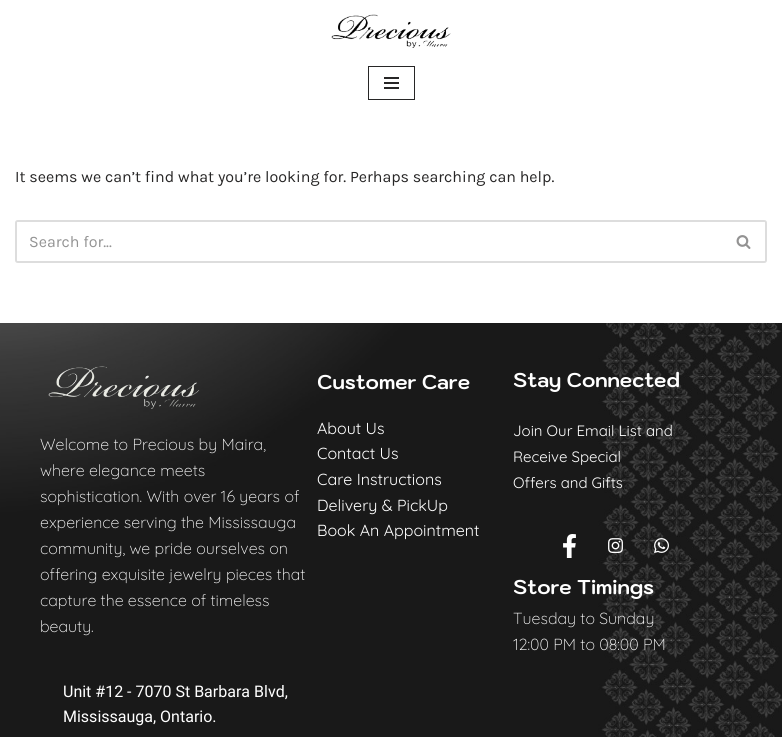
#include <cairo.h>
#include <math.h>
#include <stddef.h>

typedef struct { const char *family; double size; int italic, bold; unsigned color; } style_t;
static cairo_t *ctx;

static void ink(unsigned color) {
    cairo_set_source_rgb(ctx, (color >> 16) / 255.0, (color >> 8 & 255) / 255.0, (color & 255) / 255.0);
}

static void write(double x, double y, const char *s, const style_t *st) {
    cairo_select_font_face(ctx, st->family, st->italic ? CAIRO_FONT_SLANT_ITALIC : CAIRO_FONT_SLANT_NORMAL,
        st->bold ? CAIRO_FONT_WEIGHT_BOLD : CAIRO_FONT_WEIGHT_NORMAL);
    cairo_set_font_size(ctx, st->size);
    ink(st->color);
    cairo_move_to(ctx, x, y);
    cairo_show_text(ctx, s);
}

static void block(double x, double y, double w, double h, unsigned color) {
    ink(color);
    cairo_rectangle(ctx, x, y, w, h);
    cairo_fill(ctx);
}

static void paste(const char *path, double x, double y, double w, double h) {
    cairo_surface_t *image = cairo_image_surface_create_from_png(path);
    cairo_save(ctx);
    cairo_set_source_surface(ctx, image, x, y);
    cairo_rectangle(ctx, x, y, w, h);
    cairo_fill(ctx);
    cairo_restore(ctx);
    cairo_surface_destroy(image);
}

static const style_t s1 = {"Karla", 16, 0, 0, 0x272626};
static const style_t s2 = {"Karla", 16, 0, 0, 0x939393};
static const style_t s3 = {"Quicksand Light", 16, 0, 0, 0xffffff};
static const style_t s4 = {"Roboto", 16, 0, 0, 0xffffff};
static const style_t s5 = {"Kodchasan", 20, 0, 1, 0xffffff};
static const style_t s6 = {"Quicksand", 16, 0, 0, 0xffffff};
static const style_t s7 = {"Quicksand", 15, 0, 0, 0xffffff};

int main(void) {
    cairo_surface_t *surface = cairo_image_surface_create(CAIRO_FORMAT_RGB24, 782, 737);
    ctx = cairo_create(surface);
    cairo_font_options_t *options = cairo_font_options_create();
    cairo_font_options_set_hint_metrics(options, CAIRO_HINT_METRICS_OFF);
    cairo_font_options_set_hint_style(options, CAIRO_HINT_STYLE_NONE);
    cairo_set_font_options(ctx, options);
    cairo_set_miter_limit(ctx, 4);
    ink(0xffffff);
    cairo_paint(ctx);
    paste("pic1.png", 331, 14, 120, 34);
    cairo_rectangle(ctx, 368.5, 66.5, 46, 33);
    ink(0x272626);
    cairo_set_line_width(ctx, 1);
    cairo_stroke(ctx);
    block(384, 77, 15, 2, 0x272626);
    block(384, 82, 15, 2, 0x272626);
    block(384, 87, 15, 2, 0x272626);
    write(15, 182, "It seems we can’t find what you’re looking for. Perhaps searching can help.", &s1);
    ink(0xdddddd);
    cairo_set_fill_rule(ctx, CAIRO_FILL_RULE_EVEN_ODD);
    cairo_new_path(ctx);
    cairo_move_to(ctx, 18, 220);
    cairo_line_to(ctx, 722, 220);
    cairo_line_to(ctx, 722, 263);
    cairo_line_to(ctx, 18, 263);
    cairo_curve_to(ctx, 16, 263, 15, 262, 15, 260);
    cairo_line_to(ctx, 15, 223);
    cairo_curve_to(ctx, 15, 221, 16, 220, 18, 220);
    cairo_close_path(ctx);
    cairo_move_to(ctx, 18, 222);
    cairo_line_to(ctx, 722, 222);
    cairo_line_to(ctx, 722, 261);
    cairo_line_to(ctx, 18, 261);
    cairo_curve_to(ctx, 17, 261, 17, 261, 17, 260);
    cairo_line_to(ctx, 17, 223);
    cairo_curve_to(ctx, 17, 222, 17, 222, 18, 222);
    cairo_close_path(ctx);
    cairo_fill(ctx);
    write(29, 247, "Search for...", &s2);
    ink(0xdddddd);
    cairo_new_path(ctx);
    cairo_move_to(ctx, 722, 220);
    cairo_line_to(ctx, 764, 220);
    cairo_curve_to(ctx, 766, 220, 767, 221, 767, 223);
    cairo_line_to(ctx, 767, 260);
    cairo_curve_to(ctx, 767, 262, 766, 263, 764, 263);
    cairo_line_to(ctx, 722, 263);
    cairo_close_path(ctx);
    cairo_move_to(ctx, 722, 222);
    cairo_line_to(ctx, 764, 222);
    cairo_curve_to(ctx, 765, 222, 765, 222, 765, 223);
    cairo_line_to(ctx, 765, 260);
    cairo_curve_to(ctx, 765, 261, 765, 261, 764, 261);
    cairo_line_to(ctx, 722, 261);
    cairo_close_path(ctx);
    cairo_fill(ctx);
    paste("pic2.png", 736, 235, 15, 14);
    paste("pic3.png", 0, 323, 782, 414);
    paste("pic4.png", 48, 366, 152, 43);
    write(40, 450, "Welcome to Precious by Maira,", &s3);
    write(40, 476, "where elegance meets", &s3);
    write(40, 502, "sophistication. With over 16 years of", &s3);
    write(40, 528, "experience serving the Mississauga", &s3);
    write(40, 554, "community, we pride ourselves on", &s3);
    write(40, 580, "offering exquisite jewelry pieces that", &s3);
    write(40, 606, "capture the essence of timeless", &s3);
    write(40, 632, "beauty.", &s3);
    write(63, 697, "Unit #12 - 7070 St Barbara Blvd,", &s4);
    write(63, 722, "Mississauga, Ontario.", &s4);
    write(317, 389, "Customer Care", &s5);
    write(317, 434, "About Us", &s6);
    write(317, 459, "Contact Us", &s6);
    write(317, 485, "Care Instructions", &s6);
    write(317, 511, "Delivery & PickUp", &s6);
    write(317, 536, "Book An Appointment", &s6);
    write(513, 387, "Stay Connected", &s5);
    write(513, 436, "Join Our Email List and", &s7);
    write(513, 462, "Receive Special", &s7);
    write(513, 488, "Offers and Gifts", &s7);
    paste("pic5.png", 563, 534, 13, 24);
    paste("pic6.png", 608, 538, 15, 15);
    paste("pic7.png", 654, 538, 15, 15);
    write(513, 594, "Store Timings", &s5);
    write(513, 624, "Tuesday to Sunday", &s3);
    write(513, 650, "12:00 PM to 08:00 PM", &s3);
    cairo_surface_write_to_png(surface, "screenshot.png");
    cairo_font_options_destroy(options);
    cairo_destroy(ctx);
    cairo_surface_destroy(surface);
    return 0;
}
